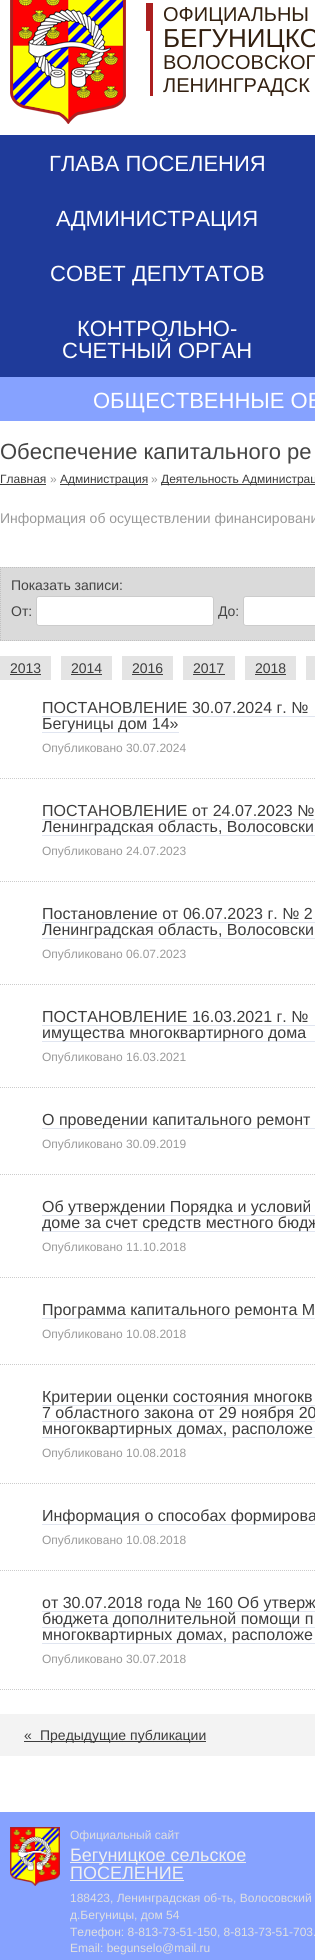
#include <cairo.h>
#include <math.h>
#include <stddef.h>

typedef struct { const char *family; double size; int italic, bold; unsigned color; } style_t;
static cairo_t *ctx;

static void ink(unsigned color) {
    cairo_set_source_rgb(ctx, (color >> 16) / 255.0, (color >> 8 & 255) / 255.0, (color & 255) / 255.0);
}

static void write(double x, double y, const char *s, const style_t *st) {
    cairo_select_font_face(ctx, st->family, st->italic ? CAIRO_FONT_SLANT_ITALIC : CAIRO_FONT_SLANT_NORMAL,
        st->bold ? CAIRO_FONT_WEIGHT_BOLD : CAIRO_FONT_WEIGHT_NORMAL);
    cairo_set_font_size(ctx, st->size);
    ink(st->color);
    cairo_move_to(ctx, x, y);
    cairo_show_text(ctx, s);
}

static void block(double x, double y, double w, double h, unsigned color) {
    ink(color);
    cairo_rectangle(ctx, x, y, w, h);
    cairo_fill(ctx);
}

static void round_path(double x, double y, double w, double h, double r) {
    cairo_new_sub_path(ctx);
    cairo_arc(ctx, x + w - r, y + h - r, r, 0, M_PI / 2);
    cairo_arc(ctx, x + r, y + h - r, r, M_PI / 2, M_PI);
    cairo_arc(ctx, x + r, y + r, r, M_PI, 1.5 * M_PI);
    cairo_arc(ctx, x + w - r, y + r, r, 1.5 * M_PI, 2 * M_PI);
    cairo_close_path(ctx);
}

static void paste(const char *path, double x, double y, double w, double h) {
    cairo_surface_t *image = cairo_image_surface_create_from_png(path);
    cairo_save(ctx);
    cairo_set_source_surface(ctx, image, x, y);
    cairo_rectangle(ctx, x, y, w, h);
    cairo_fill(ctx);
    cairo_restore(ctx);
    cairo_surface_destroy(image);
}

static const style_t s1 = {"Liberation Sans", 20, 0, 0, 0x332010};
static const style_t s2 = {"Liberation Sans", 26, 0, 0, 0x332010};
static const style_t s3 = {"Liberation Sans", 22, 0, 0, 0xffffff};
static const style_t s4 = {"Liberation Sans", 22, 0, 0, 0x444444};
static const style_t s5 = {"Liberation Sans", 12, 0, 0, 0x3d3d3d};
static const style_t s6 = {"Liberation Sans", 12, 0, 0, 0x999999};
static const style_t s7 = {"Liberation Sans", 14, 0, 0, 0x999999};
static const style_t s8 = {"Liberation Sans", 14, 0, 0, 0x444444};
static const style_t s9 = {"Liberation Sans", 14, 0, 0, 0x3d3d3d};
static const style_t s10 = {"Liberation Sans", 16, 0, 0, 0x3d3d3d};
static const style_t s11 = {"Liberation Sans", 12, 0, 0, 0xe0e0e0};
static const style_t s12 = {"Liberation Sans", 18, 0, 0, 0xf0f0f0};

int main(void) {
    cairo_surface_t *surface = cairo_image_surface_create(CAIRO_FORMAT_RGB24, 315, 1960);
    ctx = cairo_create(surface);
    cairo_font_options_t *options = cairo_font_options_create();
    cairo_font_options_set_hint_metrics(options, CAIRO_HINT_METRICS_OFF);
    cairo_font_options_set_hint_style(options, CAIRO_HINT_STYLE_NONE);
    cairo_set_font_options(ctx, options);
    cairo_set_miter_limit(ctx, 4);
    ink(0xffffff);
    cairo_paint(ctx);
    paste("pic1.png", 10, 0, 116, 124);
    paste("pic2.png", 146, 3, 7, 93);
    write(163, 21, "ОФИЦИАЛЬНЫ", &s1);
    write(163, 47, "БЕГУНИЦКО", &s2);
    write(163, 69, "ВОЛОСОВСКОГ", &s1);
    write(163, 92, "ЛЕНИНГРАДСК", &s1);
    block(0, 135, 315, 242, 0x1f3b9a);
    write(49, 171, "ГЛАВА ПОСЕЛЕНИЯ", &s3);
    write(56, 226, "АДМИНИСТРАЦИЯ", &s3);
    write(50, 281, "СОВЕТ ДЕПУТАТОВ", &s3);
    write(77, 336, "КОНТРОЛЬНО-", &s3);
    write(62, 358, "СЧЕТНЫЙ ОРГАН", &s3);
    block(0, 377, 315, 44, 0x86a2ff);
    write(93, 408, "ОБЩЕСТВЕННЫЕ ОБ", &s3);
    write(0, 459, "Обеспечение капитального ре", &s4);
    write(0, 483, "Главная", &s5);
    block(0, 484, 46, 1, 0x3d3d3d);
    write(50, 483, "»", &s6);
    block(60, 484, 88, 1, 0x3d3d3d);
    write(60, 483, "Администрация", &s5);
    write(151, 483, "»", &s6);
    block(161, 484, 154, 1, 0x3d3d3d);
    write(161, 483, "Деятельность Администрац", &s5);
    write(0, 523, "Информация об осуществлении финансировани", &s7);
    block(0, 567, 315, 74, 0xdadada);
    cairo_new_path(ctx);
    cairo_move_to(ctx, 0, 567.5);
    cairo_line_to(ctx, 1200, 567.5);
    ink(0xc1c1c1);
    cairo_set_line_width(ctx, 1);
    cairo_set_dash(ctx, (double[]){1, 1}, 2, 0);
    cairo_stroke(ctx);
    cairo_new_path(ctx);
    cairo_move_to(ctx, 0, 640.5);
    cairo_line_to(ctx, 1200, 640.5);
    cairo_stroke(ctx);
    cairo_new_path(ctx);
    cairo_move_to(ctx, 0.5, 567);
    cairo_line_to(ctx, 0.5, 641);
    cairo_stroke(ctx);
    write(11, 590, "Показать записи:", &s8);
    write(11, 616, "От:", &s8);
    ink(0xffffff);
    round_path(36.5, 596.5, 177, 29, 2.5);
    cairo_fill_preserve(ctx);
    ink(0xcccccc);
    cairo_set_dash(ctx, NULL, 0, 0);
    cairo_stroke(ctx);
    write(218, 616, "До:", &s8);
    ink(0xffffff);
    round_path(243.5, 596.5, 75, 29, 2.5);
    cairo_fill_preserve(ctx);
    ink(0xcccccc);
    cairo_stroke(ctx);
    block(0, 656, 51, 24, 0xe4e4e4);
    write(10, 673, "2013", &s9);
    block(10, 674, 31, 1, 0x3d3d3d);
    block(61, 656, 51, 24, 0xe4e4e4);
    write(71, 673, "2014", &s9);
    block(71, 674, 31, 1, 0x3d3d3d);
    block(122, 656, 51, 24, 0xe4e4e4);
    write(132, 673, "2016", &s9);
    block(132, 674, 31, 1, 0x3d3d3d);
    block(183, 656, 52, 24, 0xe4e4e4);
    write(193, 673, "2017", &s9);
    block(193, 674, 32, 1, 0x3d3d3d);
    block(245, 656, 51, 24, 0xe4e4e4);
    write(255, 673, "2018", &s9);
    block(255, 674, 31, 1, 0x3d3d3d);
    block(306, 656, 9, 24, 0xe4e4e4);
    cairo_new_path(ctx);
    cairo_move_to(ctx, 0, 778.5);
    cairo_line_to(ctx, 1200, 778.5);
    ink(0xcccccc);
    cairo_set_dash(ctx, (double[]){1, 1}, 2, 0);
    cairo_stroke(ctx);
    write(42, 713, "ПОСТАНОВЛЕНИЕ 30.07.2024 г. №", &s10);
    block(42, 716, 273, 1, 0xe0e5f0);
    block(42, 732, 137, 1, 0xe0e5f0);
    write(42, 729, "Бегуницы дом 14»", &s10);
    write(42, 752, "Опубликовано 30.07.2024", &s6);
    cairo_new_path(ctx);
    cairo_move_to(ctx, 0, 881.5);
    cairo_line_to(ctx, 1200, 881.5);
    ink(0xcccccc);
    cairo_stroke(ctx);
    write(42, 816, "ПОСТАНОВЛЕНИЕ от 24.07.2023 №", &s10);
    block(42, 835, 273, 1, 0xe0e5f0);
    write(42, 832, "Ленинградская область, Волосовски", &s10);
    block(42, 819, 273, 1, 0xe0e5f0);
    write(42, 855, "Опубликовано 24.07.2023", &s6);
    cairo_new_path(ctx);
    cairo_move_to(ctx, 0, 984.5);
    cairo_line_to(ctx, 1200, 984.5);
    ink(0xcccccc);
    cairo_stroke(ctx);
    write(42, 919, "Постановление от 06.07.2023 г. № 2", &s10);
    block(42, 938, 273, 1, 0xe0e5f0);
    write(42, 935, "Ленинградская область, Волосовски", &s10);
    block(42, 922, 273, 1, 0xe0e5f0);
    write(42, 958, "Опубликовано 06.07.2023", &s6);
    cairo_new_path(ctx);
    cairo_move_to(ctx, 0, 1087.5);
    cairo_line_to(ctx, 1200, 1087.5);
    ink(0xcccccc);
    cairo_stroke(ctx);
    write(42, 1022, "ПОСТАНОВЛЕНИЕ 16.03.2021 г. №", &s10);
    block(42, 1025, 273, 1, 0xe0e5f0);
    block(42, 1041, 273, 1, 0xe0e5f0);
    write(42, 1038, "имущества многоквартирного дома", &s10);
    write(42, 1061, "Опубликовано 16.03.2021", &s6);
    cairo_new_path(ctx);
    cairo_move_to(ctx, 0, 1174.5);
    cairo_line_to(ctx, 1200, 1174.5);
    ink(0xcccccc);
    cairo_stroke(ctx);
    block(42, 1128, 273, 1, 0xe0e5f0);
    write(42, 1125, "О проведении капитального ремонт", &s10);
    write(42, 1148, "Опубликовано 30.09.2019", &s6);
    cairo_new_path(ctx);
    cairo_move_to(ctx, 0, 1277.5);
    cairo_line_to(ctx, 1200, 1277.5);
    ink(0xcccccc);
    cairo_stroke(ctx);
    block(42, 1215, 273, 1, 0xe0e5f0);
    write(42, 1212, "Об утверждении Порядка и условий", &s10);
    block(42, 1231, 273, 1, 0xe0e5f0);
    write(42, 1228, "доме за счет средств местного бюдж", &s10);
    write(42, 1251, "Опубликовано 11.10.2018", &s6);
    cairo_new_path(ctx);
    cairo_move_to(ctx, 0, 1364.5);
    cairo_line_to(ctx, 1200, 1364.5);
    ink(0xcccccc);
    cairo_stroke(ctx);
    block(42, 1318, 273, 1, 0xe0e5f0);
    write(42, 1315, "Программа капитального ремонта М", &s10);
    write(42, 1338, "Опубликовано 10.08.2018", &s6);
    cairo_new_path(ctx);
    cairo_move_to(ctx, 0, 1483.5);
    cairo_line_to(ctx, 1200, 1483.5);
    ink(0xcccccc);
    cairo_stroke(ctx);
    block(42, 1405, 273, 1, 0xe0e5f0);
    write(42, 1402, "Критерии оценки состояния многокв", &s10);
    block(42, 1421, 273, 1, 0xe0e5f0);
    write(42, 1418, "7 областного закона от 29 ноября 20", &s10);
    block(42, 1437, 273, 1, 0xe0e5f0);
    write(42, 1434, "многоквартирных домах, расположе", &s10);
    write(42, 1457, "Опубликовано 10.08.2018", &s6);
    cairo_new_path(ctx);
    cairo_move_to(ctx, 0, 1570.5);
    cairo_line_to(ctx, 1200, 1570.5);
    ink(0xcccccc);
    cairo_stroke(ctx);
    block(42, 1524, 273, 1, 0xe0e5f0);
    write(42, 1521, "Информация о способах формирова", &s10);
    write(42, 1544, "Опубликовано 10.08.2018", &s6);
    cairo_new_path(ctx);
    cairo_move_to(ctx, 0, 1689.5);
    cairo_line_to(ctx, 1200, 1689.5);
    ink(0xcccccc);
    cairo_stroke(ctx);
    block(42, 1611, 273, 1, 0xe0e5f0);
    write(42, 1608, "от 30.07.2018 года № 160 Об утверж", &s10);
    block(42, 1627, 273, 1, 0xe0e5f0);
    write(42, 1624, "бюджета дополнительной помощи п", &s10);
    block(42, 1643, 273, 1, 0xe0e5f0);
    write(42, 1640, "многоквартирных домах, расположе", &s10);
    write(42, 1663, "Опубликовано 30.07.2018", &s6);
    block(0, 1714, 315, 42, 0xf3f3f3);
    write(24, 1740, "«", &s9);
    block(24, 1741, 182, 1, 0x3d3d3d);
    write(40, 1740, "Предыдущие публикации", &s9);
    block(0, 1812, 315, 148, 0x86a2ff);
    paste("pic3.png", 10, 1827, 50, 59);
    write(70, 1839, "Официальный сайт", &s11);
    block(70, 1862, 176, 1, 0xf0f0f0);
    write(70, 1861, "Бегуницкое сельское", &s12);
    write(70, 1879, "ПОСЕЛЕНИЕ", &s12);
    block(70, 1880, 114, 1, 0xf0f0f0);
    write(70, 1902, "188423, Ленинградская об-ть, Волосовский", &s11);
    write(70, 1919, "д.Бегуницы, дом 54", &s11);
    write(70, 1936, "Телефон: 8-813-73-51-150, 8-813-73-51-703.", &s11);
    write(70, 1952, "Email: begunselo@mail.ru", &s11);
    cairo_surface_write_to_png(surface, "screenshot.png");
    cairo_font_options_destroy(options);
    cairo_destroy(ctx);
    cairo_surface_destroy(surface);
    return 0;
}
